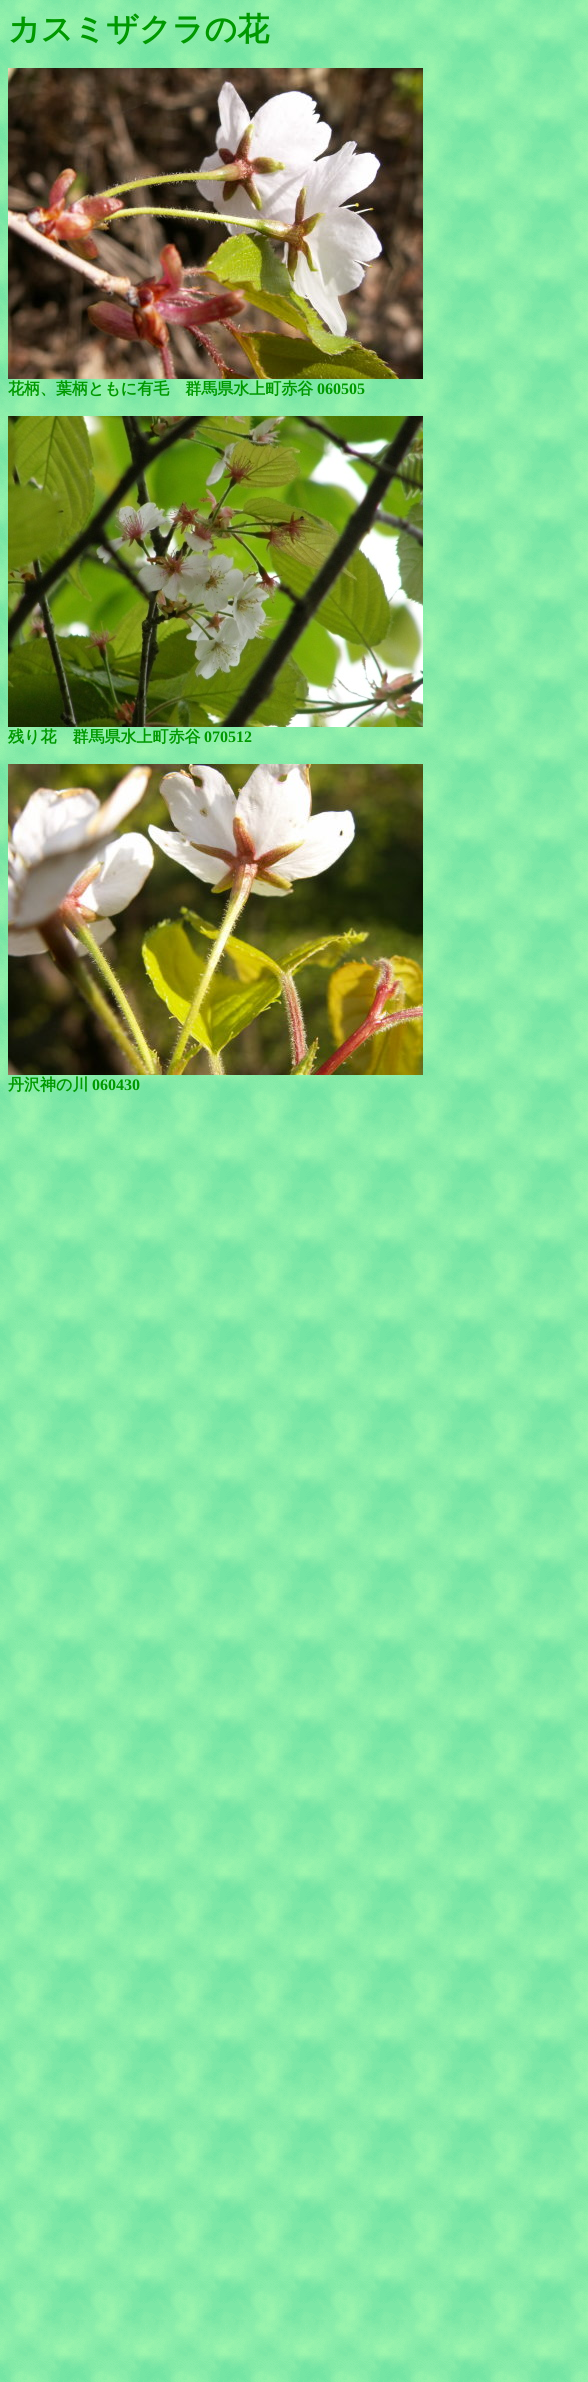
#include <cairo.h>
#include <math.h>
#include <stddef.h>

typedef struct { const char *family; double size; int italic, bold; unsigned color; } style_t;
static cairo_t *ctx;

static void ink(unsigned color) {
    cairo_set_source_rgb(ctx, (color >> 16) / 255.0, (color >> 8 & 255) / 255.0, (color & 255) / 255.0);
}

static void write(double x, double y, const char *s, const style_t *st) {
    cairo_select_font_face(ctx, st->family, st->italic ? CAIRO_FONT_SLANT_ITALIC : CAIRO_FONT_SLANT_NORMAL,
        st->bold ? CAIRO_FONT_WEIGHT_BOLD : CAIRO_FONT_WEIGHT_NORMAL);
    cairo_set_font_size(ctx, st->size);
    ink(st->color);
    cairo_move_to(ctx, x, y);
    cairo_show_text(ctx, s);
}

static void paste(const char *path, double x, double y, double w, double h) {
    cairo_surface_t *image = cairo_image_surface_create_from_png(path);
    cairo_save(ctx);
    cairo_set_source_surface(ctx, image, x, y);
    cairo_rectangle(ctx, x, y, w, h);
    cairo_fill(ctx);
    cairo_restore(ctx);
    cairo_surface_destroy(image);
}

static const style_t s1 = {"WenQuanYi Zen Hei", 32, 0, 1, 0x009900};
static const style_t s2 = {"WenQuanYi Zen Hei", 16, 0, 1, 0x009900};
static const style_t s3 = {"Liberation Serif", 16, 0, 1, 0x009900};

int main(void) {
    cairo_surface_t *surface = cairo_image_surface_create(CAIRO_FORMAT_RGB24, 588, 2382);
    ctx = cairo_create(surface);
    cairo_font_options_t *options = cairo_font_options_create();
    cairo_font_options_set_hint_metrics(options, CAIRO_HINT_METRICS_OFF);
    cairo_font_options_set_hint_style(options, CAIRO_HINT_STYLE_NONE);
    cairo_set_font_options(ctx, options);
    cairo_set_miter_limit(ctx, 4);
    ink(0xffffff);
    cairo_paint(ctx);
    paste("pic1.png", 0, 0, 588, 2382);
    write(8, 40, "カスミザクラの花", &s1);
    paste("pic2.png", 8, 68, 415, 311);
    write(8, 394, "花柄、葉柄ともに有毛　群馬県水上町赤谷", &s2);
    write(317, 394, "060505", &s3);
    paste("pic3.png", 8, 416, 415, 311);
    write(8, 742, "残り花　群馬県水上町赤谷", &s2);
    write(204, 742, "070512", &s3);
    paste("pic4.png", 8, 764, 415, 311);
    write(8, 1090, "丹沢神の川", &s2);
    write(92, 1090, "060430", &s3);
    cairo_surface_write_to_png(surface, "screenshot.png");
    cairo_font_options_destroy(options);
    cairo_destroy(ctx);
    cairo_surface_destroy(surface);
    return 0;
}
